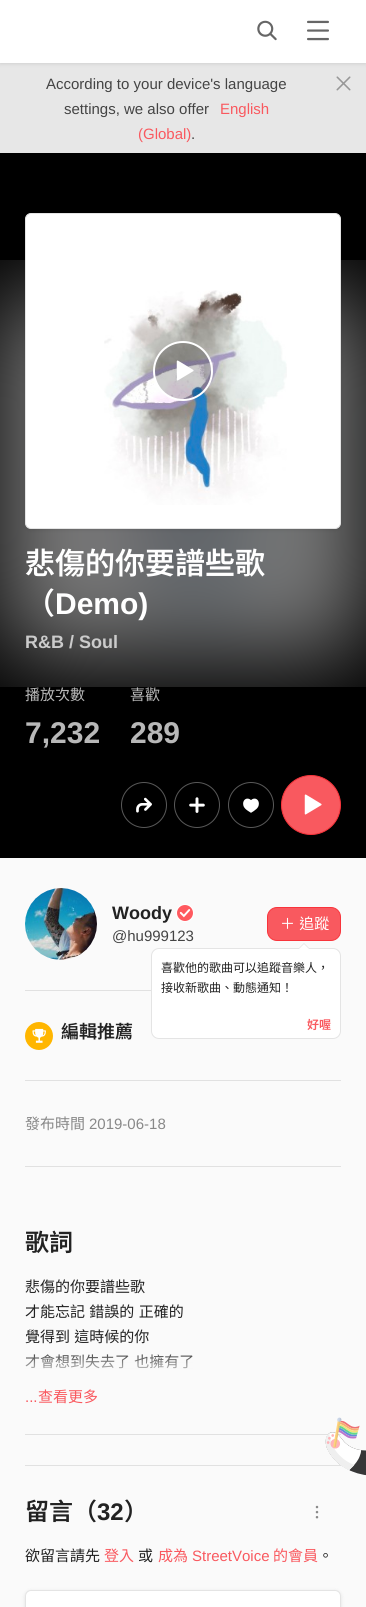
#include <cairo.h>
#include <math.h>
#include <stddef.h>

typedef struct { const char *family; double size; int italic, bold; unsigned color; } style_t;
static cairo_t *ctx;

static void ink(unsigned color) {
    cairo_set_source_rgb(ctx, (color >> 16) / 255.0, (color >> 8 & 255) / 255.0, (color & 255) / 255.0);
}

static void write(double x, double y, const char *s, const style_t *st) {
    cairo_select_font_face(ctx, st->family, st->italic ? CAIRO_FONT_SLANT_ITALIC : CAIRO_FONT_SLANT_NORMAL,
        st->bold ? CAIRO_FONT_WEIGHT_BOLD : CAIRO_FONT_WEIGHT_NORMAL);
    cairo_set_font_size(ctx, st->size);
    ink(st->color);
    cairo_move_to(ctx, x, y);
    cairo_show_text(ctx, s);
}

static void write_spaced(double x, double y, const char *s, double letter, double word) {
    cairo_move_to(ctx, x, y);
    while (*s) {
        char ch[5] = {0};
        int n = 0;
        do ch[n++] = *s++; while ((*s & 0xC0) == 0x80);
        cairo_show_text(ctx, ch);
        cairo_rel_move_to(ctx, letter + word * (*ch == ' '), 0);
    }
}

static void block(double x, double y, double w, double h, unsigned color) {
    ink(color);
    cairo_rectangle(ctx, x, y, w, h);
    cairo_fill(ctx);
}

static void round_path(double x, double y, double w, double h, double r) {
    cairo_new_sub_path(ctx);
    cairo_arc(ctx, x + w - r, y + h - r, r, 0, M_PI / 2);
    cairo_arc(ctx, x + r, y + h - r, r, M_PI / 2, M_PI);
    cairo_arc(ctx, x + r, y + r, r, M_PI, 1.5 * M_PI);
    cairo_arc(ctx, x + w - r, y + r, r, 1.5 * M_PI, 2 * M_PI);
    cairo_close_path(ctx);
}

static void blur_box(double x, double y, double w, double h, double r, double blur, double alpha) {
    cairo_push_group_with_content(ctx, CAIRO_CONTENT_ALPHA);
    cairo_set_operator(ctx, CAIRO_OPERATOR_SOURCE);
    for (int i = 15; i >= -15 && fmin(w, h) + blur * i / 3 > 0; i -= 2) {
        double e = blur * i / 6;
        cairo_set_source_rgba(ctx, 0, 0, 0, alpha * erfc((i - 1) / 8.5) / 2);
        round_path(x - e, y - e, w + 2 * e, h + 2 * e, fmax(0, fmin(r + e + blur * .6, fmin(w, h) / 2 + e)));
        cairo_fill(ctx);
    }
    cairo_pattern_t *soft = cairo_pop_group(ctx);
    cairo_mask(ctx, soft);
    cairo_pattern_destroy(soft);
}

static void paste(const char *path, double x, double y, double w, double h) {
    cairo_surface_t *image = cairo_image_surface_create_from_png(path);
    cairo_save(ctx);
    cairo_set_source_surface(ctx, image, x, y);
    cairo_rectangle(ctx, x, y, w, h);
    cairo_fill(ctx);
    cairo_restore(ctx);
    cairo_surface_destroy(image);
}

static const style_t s1 = {"Liberation Sans", 15, 0, 0, 0x444444};
static const style_t s2 = {"Liberation Sans", 15, 0, 0, 0xf9595f};
static const style_t s3 = {"Noto Sans TC SemiBold", 30, 0, 0, 0xffffff};
static const style_t s4 = {"Liberation Sans", 30, 0, 1, 0xffffff};
static const style_t s5 = {"Liberation Sans", 18, 0, 1, 0xcbcbcb};
static const style_t s6 = {"Noto Sans TC", 15, 0, 0, 0xb8b8b8};
static const style_t s7 = {"Liberation Sans", 30, 0, 1, 0xb8b8b8};
static const style_t s8 = {"Liberation Sans", 18, 0, 1, 0x222222};
static const style_t s9 = {"Noto Sans TC", 12, 0, 0, 0x222222};
static const style_t s10 = {"Noto Sans TC SemiBold", 12, 0, 0, 0xf9595f};
static const style_t s11 = {"Noto Sans TC SemiBold", 18, 0, 0, 0x222222};
static const style_t s12 = {"Noto Sans TC", 15, 0, 0, 0x888888};
static const style_t s13 = {"Liberation Sans", 15, 0, 0, 0x888888};
static const style_t s14 = {"Noto Sans TC SemiBold", 24, 0, 0, 0x222222};
static const style_t s15 = {"Noto Sans TC", 15, 0, 0, 0x222222};
static const style_t s16 = {"Noto Sans TC", 15, 0, 0, 0xf9595f};
static const style_t s17 = {"Liberation Sans", 24, 0, 1, 0x222222};

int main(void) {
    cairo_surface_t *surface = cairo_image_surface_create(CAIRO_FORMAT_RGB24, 366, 1607);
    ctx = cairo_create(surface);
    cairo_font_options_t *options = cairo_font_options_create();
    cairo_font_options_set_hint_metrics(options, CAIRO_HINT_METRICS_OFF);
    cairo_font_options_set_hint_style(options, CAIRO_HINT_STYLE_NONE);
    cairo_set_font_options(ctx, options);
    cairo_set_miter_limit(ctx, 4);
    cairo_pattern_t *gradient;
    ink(0xfafafa);
    cairo_paint(ctx);
    block(0, 63, 366, 90, 0xe7e7e7);
    write(46, 89, "According to your device's language", &s1);
    write(64, 114, "settings, we also offer", &s1);
    write(220, 114, "English", &s2);
    write(138, 139, "(Global)", &s2);
    write(191, 139, ".", &s1);
    paste("pic1.png", 336, 76, 15, 15);
    ink(0x000000);
    blur_box(0, 1, 366, 63, 0, 2, 0.1);
    block(0, 0, 366, 63, 0xffffff);
    paste("pic2.png", 257, 20, 20, 21);
    paste("pic3.png", 307, 20, 22, 21);
    block(0, 153, 366, 705, 0x000000);
    paste("pic4.png", 0, 260, 366, 427);
    ink(0x000000);
    blur_box(25, 214, 316, 316, 6, 2, 0.1);
    ink(0xffffff);
    round_path(25.5, 213.5, 315, 315, 5.5);
    cairo_fill_preserve(ctx);
    ink(0xe4e4e4);
    cairo_set_line_width(ctx, 1);
    cairo_stroke(ctx);
    paste("pic5.png", 104, 290, 183, 215);
    cairo_set_source_rgba(ctx, 0, 0, 0, 0.2);
    cairo_arc(ctx, 183, 371, 29, 0, 2 * M_PI);
    cairo_fill_preserve(ctx);
    ink(0xffffff);
    cairo_set_line_width(ctx, 2);
    cairo_stroke(ctx);
    paste("pic6.png", 176, 360, 18, 21);
    write(25, 574, "悲傷的你要譜些歌", &s3);
    write(25, 614, "（", &s3);
    write(55, 614, "Demo)", &s4);
    write(25, 648, "R&B / Soul", &s5);
    write(25, 700, "播放次數", &s6);
    write(25, 743, "7,232", &s7);
    write(130, 700, "喜歡", &s6);
    write(130, 743, "289", &s7);
    cairo_new_path(ctx);
    cairo_arc(ctx, 144, 805, 22.5, 0, 2 * M_PI);
    ink(0x595959);
    cairo_set_line_width(ctx, 1);
    cairo_stroke(ctx);
    paste("pic7.png", 136, 797, 16, 16);
    cairo_arc(ctx, 197, 805, 22.5, 0, 2 * M_PI);
    cairo_stroke(ctx);
    paste("pic8.png", 189, 797, 16, 16);
    cairo_arc(ctx, 251, 805, 22.5, 0, 2 * M_PI);
    cairo_stroke(ctx);
    paste("pic9.png", 243, 798, 16, 15);
    ink(0xf9595f);
    cairo_arc(ctx, 311, 805, 29.5, 0, 2 * M_PI);
    cairo_fill_preserve(ctx);
    ink(0xf8343b);
    cairo_stroke(ctx);
    paste("pic10.png", 304, 794, 18, 21);
    block(25, 990, 126, 1, 0xe1e1e1);
    paste("pic11.png", 25, 888, 72, 72);
    write(112, 919, "Woody", &s8);
    paste("pic12.png", 176, 904, 18, 18);
    write(112, 941, "@hu999123", &s1);
    ink(0xf9595f);
    round_path(267.5, 907.5, 73, 33, 9.5);
    cairo_fill_preserve(ctx);
    ink(0xf8343b);
    cairo_stroke(ctx);
    cairo_select_font_face(ctx, "Noto Sans TC", CAIRO_FONT_SLANT_NORMAL, CAIRO_FONT_WEIGHT_NORMAL);
    ink(0xffffff);
    write_spaced(280, 929, "＋ 追蹤", 0, 1);
    round_path(151.5, 948.5, 189, 90, 7.5);
    cairo_fill_preserve(ctx);
    ink(0xe4e4e4);
    cairo_stroke(ctx);
    cairo_new_path(ctx);
    cairo_move_to(ctx, 310, 949);
    cairo_line_to(ctx, 298, 949);
    cairo_line_to(ctx, 304, 943);
    cairo_close_path(ctx);
    cairo_fill(ctx);
    ink(0xffffff);
    cairo_new_path(ctx);
    cairo_move_to(ctx, 309, 949);
    cairo_line_to(ctx, 299, 949);
    cairo_line_to(ctx, 304, 944);
    cairo_close_path(ctx);
    cairo_fill(ctx);
    write(161, 972, "喜歡他的歌曲可以追蹤音樂人，", &s9);
    write(161, 992, "接收新歌曲、動態通知！", &s9);
    write(307, 1029, "好喔", &s10);
    ink(0xffb600);
    cairo_new_path(ctx);
    cairo_arc(ctx, 39, 1036, 14, 0, 2 * M_PI);
    cairo_fill(ctx);
    paste("pic13.png", 32, 1028, 14, 15);
    write(61, 1038, "編輯推薦", &s11);
    block(25, 1080, 316, 1, 0xe1e1e1);
    write(25, 1129, "發布時間", &s12);
    write(89, 1129, "2019-06-18", &s13);
    block(25, 1166, 316, 1, 0xe1e1e1);
    write(25, 1251, "歌詞", &s14);
    write(25, 1292, "悲傷的你要譜些歌", &s15);
    write_spaced(25, 1317, "才能忘記 錯誤的 正確的", 0, 1);
    write_spaced(25, 1342, "覺得到 這時候的你", 0, 1);
    write_spaced(25, 1367, "才會想到失去了 也擁有了", 0, 1);
    gradient = cairo_pattern_create_linear(183, 1349, 183, 1409);
    cairo_pattern_add_color_stop_rgba(gradient, 0, 0.98, 0.98, 0.98, 0);
    cairo_pattern_add_color_stop_rgba(gradient, 0.5, 0.98, 0.98, 0.98, 1);
    cairo_set_source(ctx, gradient);
    cairo_pattern_destroy(gradient);
    cairo_rectangle(ctx, 25, 1354, 168, 15);
    cairo_fill(ctx);
    write(25, 1402, "...", &s2);
    write(38, 1402, "查看更多", &s16);
    block(25, 1434, 316, 1, 0xe1e1e1);
    block(25, 1465, 316, 1, 0xe1e1e1);
    write(25, 1520, "留言（", &s14);
    write(97, 1520, "32", &s17);
    write(124, 1520, "）", &s14);
    paste("pic14.png", 315, 1505, 4, 14);
    write(25, 1561, "欲留言請先", &s15);
    write(104, 1561, "登入", &s16);
    write(138, 1561, "或", &s15);
    write(158, 1561, "成為", &s16);
    write(192, 1561, "StreetVoice", &s2);
    write(273, 1561, "的會員", &s16);
    write(318, 1561, "。", &s15);
    ink(0x000000);
    blur_box(25, 1591, 316, 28, 6, 2, 0.1);
    ink(0xffffff);
    round_path(25.5, 1590.5, 315, 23, 5.5);
    cairo_fill_preserve(ctx);
    ink(0xe4e4e4);
    cairo_stroke(ctx);
    paste("pic15.png", 325, 1417, 41, 59);
    cairo_surface_write_to_png(surface, "screenshot.png");
    cairo_font_options_destroy(options);
    cairo_destroy(ctx);
    cairo_surface_destroy(surface);
    return 0;
}
